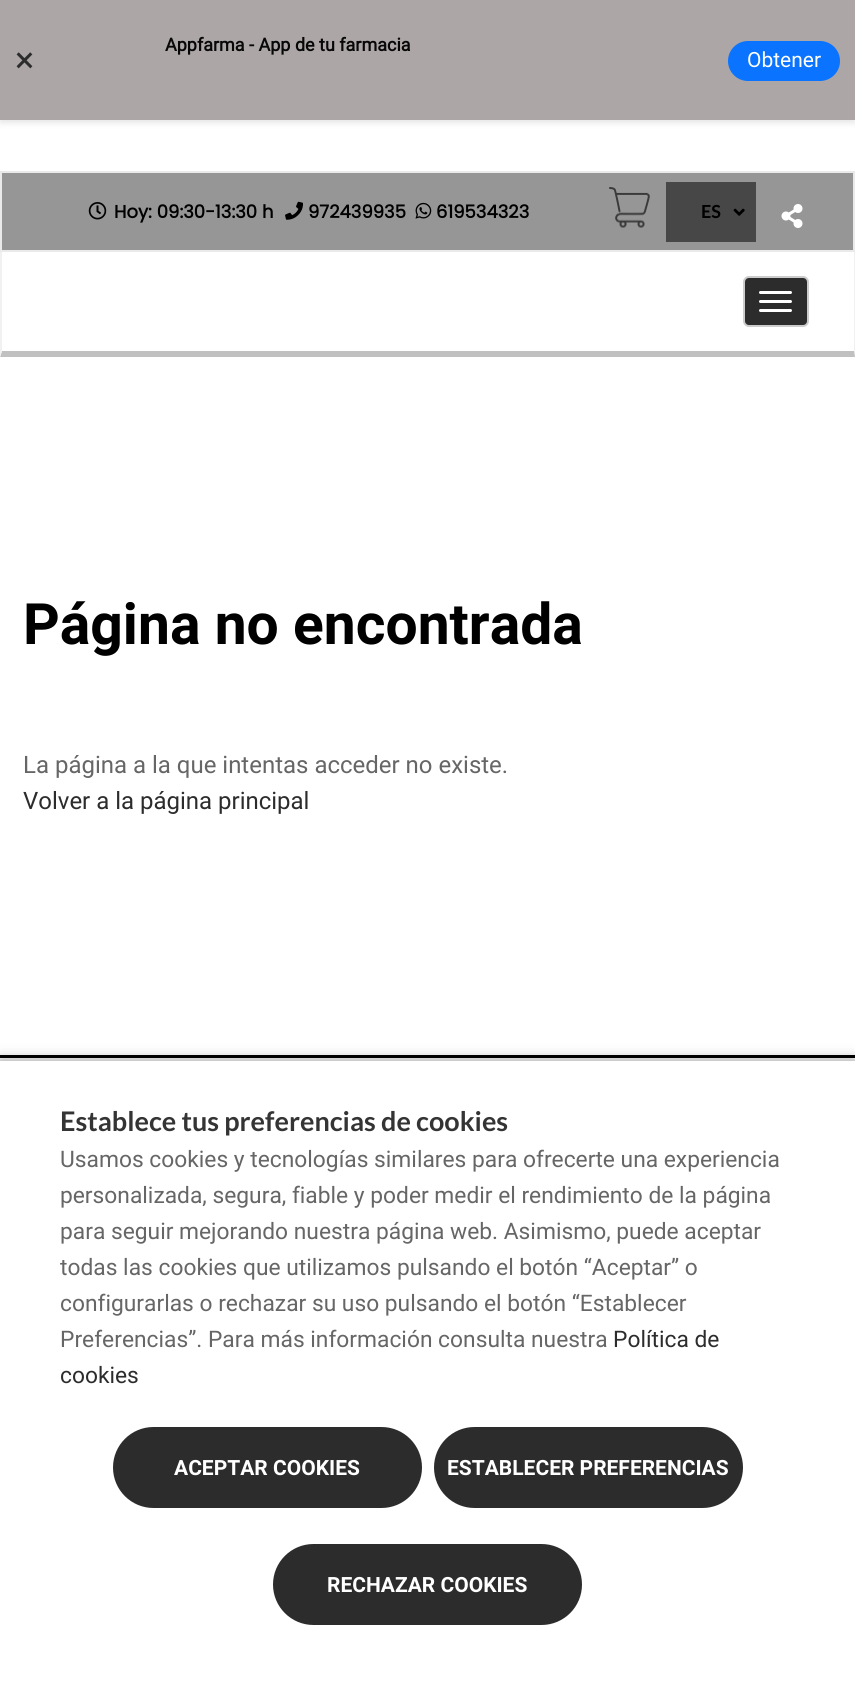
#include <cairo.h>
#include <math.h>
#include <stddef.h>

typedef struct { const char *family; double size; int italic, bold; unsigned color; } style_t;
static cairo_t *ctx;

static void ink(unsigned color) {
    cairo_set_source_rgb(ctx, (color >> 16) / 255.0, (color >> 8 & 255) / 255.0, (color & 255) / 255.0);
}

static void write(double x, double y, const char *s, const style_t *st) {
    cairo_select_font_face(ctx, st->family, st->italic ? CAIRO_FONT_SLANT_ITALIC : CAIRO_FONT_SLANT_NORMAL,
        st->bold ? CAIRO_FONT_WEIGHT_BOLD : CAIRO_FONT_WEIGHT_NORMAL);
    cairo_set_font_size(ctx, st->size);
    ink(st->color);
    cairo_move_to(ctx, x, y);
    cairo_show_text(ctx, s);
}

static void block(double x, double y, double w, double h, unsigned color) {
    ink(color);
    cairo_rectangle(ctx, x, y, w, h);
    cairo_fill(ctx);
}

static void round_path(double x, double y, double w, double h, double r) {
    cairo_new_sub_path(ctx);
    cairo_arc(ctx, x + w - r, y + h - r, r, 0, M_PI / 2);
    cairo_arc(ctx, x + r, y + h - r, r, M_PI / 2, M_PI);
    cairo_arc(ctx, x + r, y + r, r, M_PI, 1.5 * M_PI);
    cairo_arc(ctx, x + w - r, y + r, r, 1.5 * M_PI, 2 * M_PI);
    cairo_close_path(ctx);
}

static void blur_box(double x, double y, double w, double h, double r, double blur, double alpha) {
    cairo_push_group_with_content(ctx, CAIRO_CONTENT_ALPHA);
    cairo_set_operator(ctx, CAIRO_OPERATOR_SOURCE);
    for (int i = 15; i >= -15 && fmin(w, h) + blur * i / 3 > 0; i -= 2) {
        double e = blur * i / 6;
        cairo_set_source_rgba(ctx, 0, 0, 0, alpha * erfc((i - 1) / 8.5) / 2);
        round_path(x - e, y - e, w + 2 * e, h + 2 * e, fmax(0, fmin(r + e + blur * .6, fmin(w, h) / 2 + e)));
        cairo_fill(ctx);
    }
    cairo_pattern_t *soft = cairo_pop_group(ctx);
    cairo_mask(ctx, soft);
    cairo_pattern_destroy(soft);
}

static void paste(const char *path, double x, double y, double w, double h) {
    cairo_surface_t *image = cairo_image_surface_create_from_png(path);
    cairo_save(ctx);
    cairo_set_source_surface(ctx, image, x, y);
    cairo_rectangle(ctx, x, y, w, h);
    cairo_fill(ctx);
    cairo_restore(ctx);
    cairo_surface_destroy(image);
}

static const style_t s1 = {"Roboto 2", 18, 0, 1, 0x070707};
static const style_t s2 = {"Roboto", 36, 0, 0, 0x2c2c2c};
static const style_t s3 = {"Roboto", 21, 0, 0, 0xffffff};
static const style_t s4 = {"Poppins", 18, 0, 1, 0x000000};
static const style_t s5 = {"Lato", 18, 0, 1, 0x000000};
static const style_t s6 = {"Roboto", 57, 0, 1, 0x000000};
static const style_t s7 = {"Roboto", 24, 0, 0, 0x666666};
static const style_t s8 = {"Roboto", 24, 0, 0, 0x2c2c2c};
static const style_t s9 = {"Lato", 27, 0, 1, 0x343434};
static const style_t s10 = {"Roboto", 22.8, 0, 0, 0x666666};
static const style_t s11 = {"Roboto", 22.8, 0, 0, 0x2c2c2c};
static const style_t s12 = {"Roboto", 21, 0, 1, 0xffffff};

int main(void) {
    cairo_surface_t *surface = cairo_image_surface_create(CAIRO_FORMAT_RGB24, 855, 1687);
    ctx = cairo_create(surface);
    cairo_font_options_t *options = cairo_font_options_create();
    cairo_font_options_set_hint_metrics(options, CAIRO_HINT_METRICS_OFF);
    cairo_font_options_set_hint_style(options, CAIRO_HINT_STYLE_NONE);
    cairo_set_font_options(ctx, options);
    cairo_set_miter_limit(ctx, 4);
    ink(0xffffff);
    cairo_paint(ctx);
    ink(0x000000);
    blur_box(0, 3, 855, 120, 0, 3, 0.1);
    block(0, 0, 855, 120, 0xaca6a6);
    write(165, 51, "Appfarma - App de tu farmacia", &s1);
    write(15, 72, "×", &s2);
    ink(0x0a73ff);
    round_path(728, 41, 112, 40, 20);
    cairo_fill(ctx);
    write(747, 67, "Obtener", &s3);
    ink(0x969696);
    cairo_rectangle(ctx, 1, 172, 853, 79);
    cairo_fill_preserve(ctx);
    ink(0xeaeaea);
    cairo_stroke(ctx);
    paste("pic1.png", 88, 202, 19, 18);
    write(114, 218, "Hoy: 09:30-13:30 h", &s4);
    paste("pic2.png", 285, 201, 18, 19);
    write(308, 218, "972439935", &s4);
    paste("pic3.png", 415, 202, 17, 17);
    write(436, 218, "619534323", &s4);
    paste("pic4.png", 609, 187, 41, 41);
    block(666, 182, 90, 60, 0x474747);
    write(701, 218, "ES", &s5);
    paste("pic5.png", 733, 208, 12, 8);
    paste("pic6.png", 781, 204, 22, 24);
    ink(0xf1f1f1);
    cairo_new_path(ctx);
    cairo_move_to(ctx, 855, 252);
    cairo_line_to(ctx, 855, 357);
    cairo_line_to(ctx, 854, 351);
    cairo_line_to(ctx, 854, 252);
    cairo_close_path(ctx);
    cairo_fill(ctx);
    cairo_set_source_rgba(ctx, 0.173, 0.173, 0.173, 0.3);
    cairo_new_path(ctx);
    cairo_move_to(ctx, 855, 357);
    cairo_line_to(ctx, 0, 357);
    cairo_line_to(ctx, 2, 351);
    cairo_line_to(ctx, 854, 351);
    cairo_close_path(ctx);
    cairo_fill(ctx);
    ink(0xf1f1f1);
    cairo_new_path(ctx);
    cairo_move_to(ctx, 0, 357);
    cairo_line_to(ctx, 0, 252);
    cairo_line_to(ctx, 2, 252);
    cairo_line_to(ctx, 2, 351);
    cairo_close_path(ctx);
    cairo_fill(ctx);
    ink(0x2c2c2c);
    round_path(744, 277, 64, 49, 5);
    cairo_fill_preserve(ctx);
    ink(0xcccccc);
    cairo_stroke(ctx);
    ink(0xffffff);
    round_path(759, 291, 33, 3, 1.5);
    cairo_fill(ctx);
    round_path(759, 300, 33, 3, 1.5);
    cairo_fill(ctx);
    round_path(759, 309, 33, 3, 1.5);
    cairo_fill(ctx);
    write(23, 644, "Página no encontrada", &s6);
    write(23, 773, "La página a la que intentas acceder no existe.", &s7);
    write(23, 809, "Volver a la página principal", &s8);
    block(0, 1055, 855, 3, 0x000000);
    ink(0x000000);
    blur_box(0, 1062, 855, 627, 0, 7.5, 0.5);
    block(0, 1061, 855, 626, 0xffffff);
    write(60, 1131, "Establece tus preferencias de cookies", &s9);
    write(60, 1167, "Usamos cookies y tecnologías similares para ofrecerte una experiencia", &s10);
    write(60, 1203, "personalizada, segura, fiable y poder medir el rendimiento de la página", &s10);
    write(60, 1239, "para seguir mejorando nuestra página web. Asimismo, puede aceptar", &s10);
    write(60, 1275, "todas las cookies que utilizamos pulsando el botón “Aceptar” o", &s10);
    write(60, 1311, "configurarlas o rechazar su uso pulsando el botón “Establecer", &s10);
    write(60, 1347, "Preferencias”. Para más información consulta nuestra", &s10);
    write(613, 1347, "Política de", &s11);
    write(60, 1383, "cookies", &s11);
    round_path(111.5, 1425.5, 312, 84, 42);
    cairo_fill_preserve(ctx);
    ink(0xffffff);
    cairo_set_line_width(ctx, 3);
    cairo_stroke(ctx);
    write(174, 1475, "ACEPTAR COOKIES", &s12);
    ink(0x2c2c2c);
    round_path(432.5, 1425.5, 312, 84, 42);
    cairo_fill_preserve(ctx);
    ink(0xffffff);
    cairo_stroke(ctx);
    write(447, 1475, "ESTABLECER PREFERENCIAS", &s12);
    ink(0x2c2c2c);
    round_path(271.5, 1542.5, 312, 84, 42);
    cairo_fill_preserve(ctx);
    ink(0xffffff);
    cairo_stroke(ctx);
    write(327, 1592, "RECHAZAR COOKIES", &s12);
    cairo_surface_write_to_png(surface, "screenshot.png");
    cairo_font_options_destroy(options);
    cairo_destroy(ctx);
    cairo_surface_destroy(surface);
    return 0;
}
